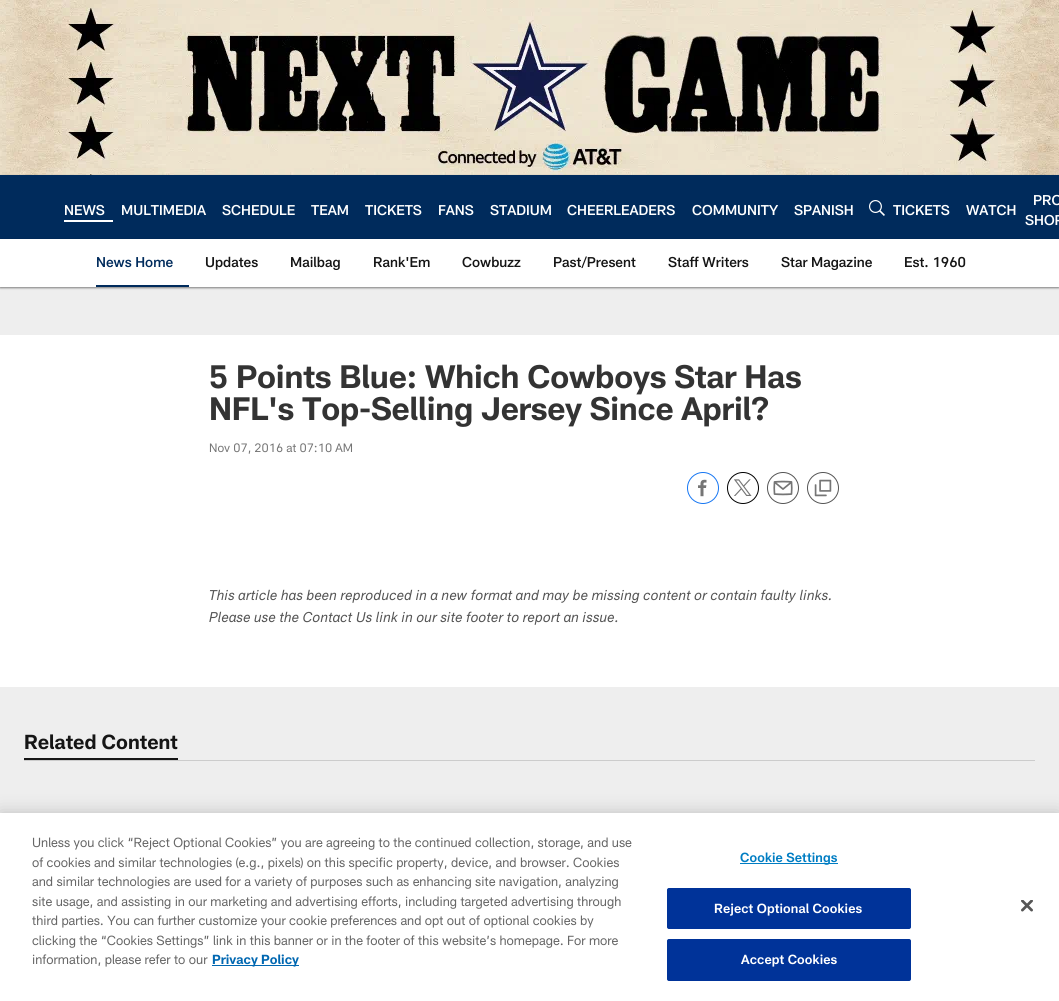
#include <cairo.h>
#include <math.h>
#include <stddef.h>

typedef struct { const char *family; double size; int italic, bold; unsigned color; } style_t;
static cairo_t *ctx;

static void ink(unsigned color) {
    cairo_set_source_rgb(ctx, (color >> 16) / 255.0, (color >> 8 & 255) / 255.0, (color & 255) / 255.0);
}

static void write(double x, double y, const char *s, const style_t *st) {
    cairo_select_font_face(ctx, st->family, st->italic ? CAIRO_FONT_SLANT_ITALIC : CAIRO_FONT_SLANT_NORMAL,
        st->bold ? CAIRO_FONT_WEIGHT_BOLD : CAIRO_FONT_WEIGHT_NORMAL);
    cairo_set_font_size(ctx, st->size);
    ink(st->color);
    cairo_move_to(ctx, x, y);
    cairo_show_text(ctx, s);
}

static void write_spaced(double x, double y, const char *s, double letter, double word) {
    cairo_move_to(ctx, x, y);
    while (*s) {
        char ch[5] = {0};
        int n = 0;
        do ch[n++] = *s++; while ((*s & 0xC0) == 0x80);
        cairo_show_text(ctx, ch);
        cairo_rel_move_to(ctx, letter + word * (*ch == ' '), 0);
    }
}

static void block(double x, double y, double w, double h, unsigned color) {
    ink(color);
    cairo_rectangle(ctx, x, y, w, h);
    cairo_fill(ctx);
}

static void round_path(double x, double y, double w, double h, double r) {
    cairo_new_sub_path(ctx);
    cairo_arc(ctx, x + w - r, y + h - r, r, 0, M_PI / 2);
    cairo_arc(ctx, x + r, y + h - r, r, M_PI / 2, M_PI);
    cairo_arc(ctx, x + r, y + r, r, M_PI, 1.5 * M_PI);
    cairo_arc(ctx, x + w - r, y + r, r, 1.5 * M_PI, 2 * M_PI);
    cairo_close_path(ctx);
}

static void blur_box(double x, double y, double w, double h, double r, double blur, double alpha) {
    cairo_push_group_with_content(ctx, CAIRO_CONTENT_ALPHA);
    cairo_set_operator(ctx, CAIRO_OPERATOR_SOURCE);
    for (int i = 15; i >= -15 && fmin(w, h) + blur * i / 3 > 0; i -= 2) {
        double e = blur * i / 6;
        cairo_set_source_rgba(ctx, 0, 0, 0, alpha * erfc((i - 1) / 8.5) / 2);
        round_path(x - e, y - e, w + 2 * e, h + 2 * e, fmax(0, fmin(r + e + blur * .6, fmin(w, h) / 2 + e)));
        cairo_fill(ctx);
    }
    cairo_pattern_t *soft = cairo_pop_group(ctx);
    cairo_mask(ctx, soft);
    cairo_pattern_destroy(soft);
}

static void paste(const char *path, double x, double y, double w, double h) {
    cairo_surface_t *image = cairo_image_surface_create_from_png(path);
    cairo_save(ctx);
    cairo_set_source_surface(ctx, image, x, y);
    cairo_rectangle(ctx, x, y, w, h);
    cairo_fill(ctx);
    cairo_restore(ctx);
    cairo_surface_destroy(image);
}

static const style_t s1 = {"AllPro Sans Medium", 14, 0, 0, 0xffffff};
static const style_t s2 = {"AllPro Sans Medium", 14, 0, 0, 0x002b5c};
static const style_t s3 = {"AllPro Sans Medium", 14, 0, 0, 0x151515};
static const style_t s4 = {"AllPro Sans", 12, 0, 0, 0x757575};
static const style_t s5 = {"AllPro Sans", 14, 1, 0, 0x555555};
static const style_t s6 = {"AllPro Sans", 20, 0, 1, 0x151515};
static const style_t s7 = {"AllPro Sans", 13, 0, 0, 0x666666};
static const style_t s8 = {"AllPro Sans", 13, 0, 1, 0x0067b1};

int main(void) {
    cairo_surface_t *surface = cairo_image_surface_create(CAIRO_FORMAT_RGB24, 1059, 1001);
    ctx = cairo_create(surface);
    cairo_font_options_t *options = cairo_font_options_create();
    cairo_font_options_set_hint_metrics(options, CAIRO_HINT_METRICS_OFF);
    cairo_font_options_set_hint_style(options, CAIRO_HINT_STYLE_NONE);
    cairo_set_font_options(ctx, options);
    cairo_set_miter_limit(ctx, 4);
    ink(0xeeeeee);
    cairo_paint(ctx);
    paste("pic1.png", 0, 0, 1059, 175);
    ink(0x000000);
    blur_box(0, 176, 1059, 64, 0, 1, 0.47);
    block(0, 175, 1059, 64, 0x002b5c);
    block(64, 220, 49, 2, 0xffffff);
    write(64, 215, "NEWS", &s1);
    write(121, 215, "MULTIMEDIA", &s1);
    write(222, 215, "SCHEDULE", &s1);
    write(311, 215, "TEAM", &s1);
    write(365, 215, "TICKETS", &s1);
    write(438, 215, "FANS", &s1);
    write(490, 215, "STADIUM", &s1);
    write(567, 215, "CHEERLEADERS", &s1);
    write(692, 215, "COMMUNITY", &s1);
    write(794, 215, "SPANISH", &s1);
    paste("pic2.png", 869, 200, 16, 16);
    write(893, 215, "TICKETS", &s1);
    write(966, 215, "WATCH", &s1);
    write(1033, 205, "PRO", &s1);
    write(1025, 225, "SHOP", &s1);
    ink(0x000000);
    blur_box(0, 240, 1059, 48, 0, 1, 0.47);
    block(0, 239, 1059, 48, 0xffffff);
    block(96, 285, 93, 2, 0x002b5c);
    write(96, 267, "News Home", &s2);
    write(205, 267, "Updates", &s3);
    write(290, 267, "Mailbag", &s3);
    write(373, 267, "Rank'Em", &s3);
    write(462, 267, "Cowbuzz", &s3);
    write(553, 267, "Past/Present", &s3);
    write(668, 267, "Staff Writers", &s3);
    write(781, 267, "Star Magazine", &s3);
    write(904, 267, "Est. 1960", &s3);
    block(0, 335, 1059, 352, 0xffffff);
    cairo_select_font_face(ctx, "AllPro Sans", CAIRO_FONT_SLANT_NORMAL, CAIRO_FONT_WEIGHT_BOLD);
    cairo_set_font_size(ctx, 32);
    ink(0x333333);
    write_spaced(209, 388, "5 Points Blue: Which Cowboys Star Has", -0.2, 0);
    write_spaced(209, 420, "NFL's Top-Selling Jersey Since April?", -0.2, 0);
    write(209, 452, "Nov 07, 2016 at 07:10 AM", &s4);
    cairo_new_path(ctx);
    cairo_arc(ctx, 703, 488, 15.5, 0, 2 * M_PI);
    ink(0x1877f2);
    cairo_set_line_width(ctx, 1);
    cairo_stroke(ctx);
    paste("pic3.png", 698, 479, 9, 18);
    cairo_arc(ctx, 743, 488, 15.5, 0, 2 * M_PI);
    ink(0x000000);
    cairo_stroke(ctx);
    paste("pic4.png", 734, 479, 18, 17);
    cairo_arc(ctx, 783, 488, 15.5, 0, 2 * M_PI);
    ink(0x555555);
    cairo_stroke(ctx);
    paste("pic5.png", 773, 480, 20, 16);
    cairo_arc(ctx, 823, 488, 15.5, 0, 2 * M_PI);
    cairo_stroke(ctx);
    paste("pic6.png", 814, 479, 18, 18);
    write(209, 600, "This article has been reproduced in a new format and may be missing content or contain faulty links.", &s5);
    write(209, 622, "Please use the Contact Us link in our site footer to report an issue.", &s5);
    block(24, 760, 1011, 1, 0xcccccc);
    block(24, 758, 154, 2, 0x151515);
    write(24, 749, "Related Content", &s6);
    ink(0x000000);
    blur_box(0, 813, 1059, 188, 0, 9, 0.2);
    block(0, 813, 1059, 188, 0xffffff);
    write(32, 847, "Unless you click “Reject Optional Cookies” you are agreeing to the continued collection, storage, and use", &s7);
    write(32, 867, "of cookies and similar technologies (e.g., pixels) on this specific property, device, and browser. Cookies", &s7);
    write(32, 886, "and similar technologies are used for a variety of purposes such as enhancing site navigation, analyzing", &s7);
    write(32, 906, "site usage, and assisting in our marketing and advertising efforts, including targeted advertising through", &s7);
    write(32, 925, "third parties. You can further customize your cookie preferences and opt out of optional cookies by", &s7);
    write(32, 945, "clicking the “Cookies Settings” link in this banner or in the footer of this website’s homepage. For more", &s7);
    write(32, 964, "information, please refer to our", &s7);
    block(212, 965, 87, 1, 0x0067b1);
    write(212, 964, "Privacy Policy", &s8);
    block(740, 863, 98, 1, 0x007dc3);
    cairo_select_font_face(ctx, "AllPro Sans SemiBold", CAIRO_FONT_SLANT_NORMAL, CAIRO_FONT_WEIGHT_NORMAL);
    write_spaced(740, 862, "Cookie Settings", 0.1, 0);
    ink(0x003399);
    round_path(667.5, 888.5, 243, 40, 1.5);
    cairo_fill_preserve(ctx);
    cairo_stroke(ctx);
    ink(0xffffff);
    write_spaced(714, 913, "Reject Optional Cookies", 0.1, 0);
    ink(0x003399);
    round_path(667.5, 939.5, 243, 41, 1.5);
    cairo_fill_preserve(ctx);
    cairo_stroke(ctx);
    ink(0xffffff);
    write_spaced(741, 964, "Accept Cookies", 0.1, 0);
    paste("pic7.png", 1021, 900, 12, 12);
    cairo_surface_write_to_png(surface, "screenshot.png");
    cairo_font_options_destroy(options);
    cairo_destroy(ctx);
    cairo_surface_destroy(surface);
    return 0;
}
